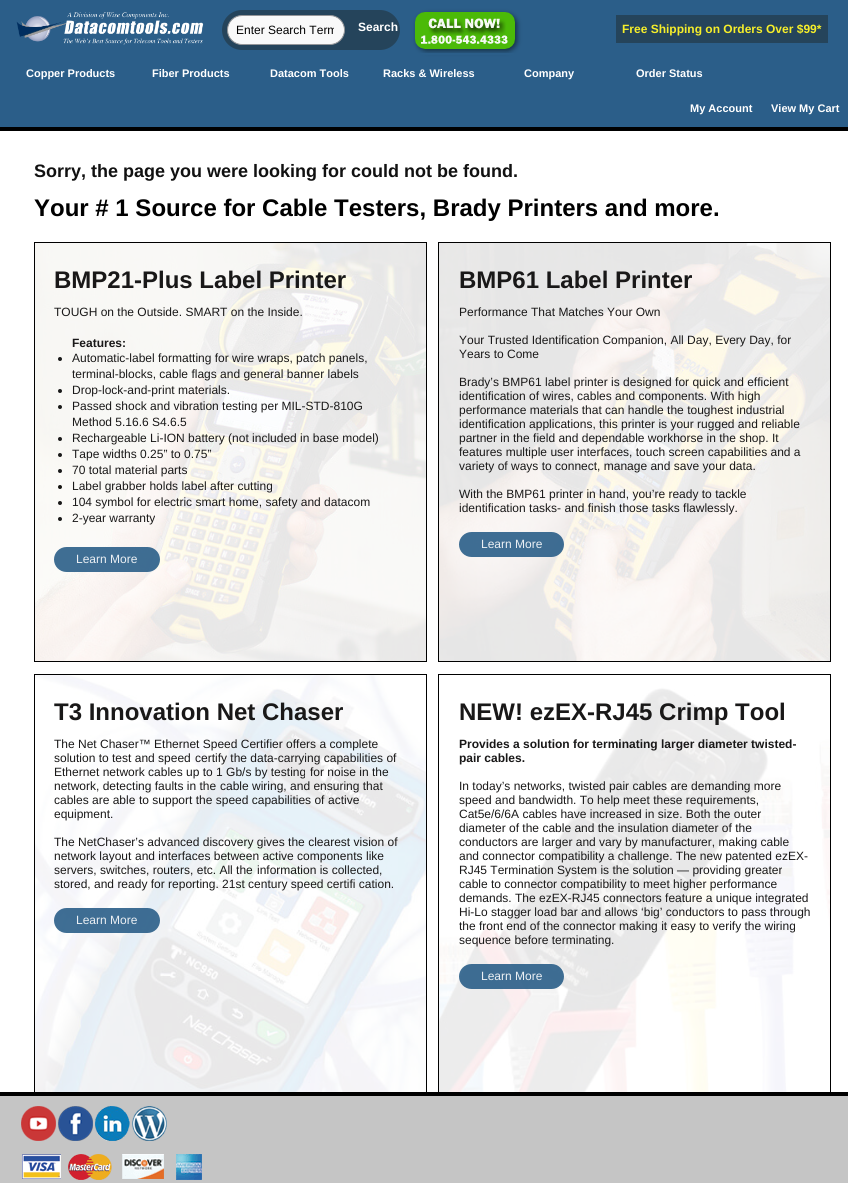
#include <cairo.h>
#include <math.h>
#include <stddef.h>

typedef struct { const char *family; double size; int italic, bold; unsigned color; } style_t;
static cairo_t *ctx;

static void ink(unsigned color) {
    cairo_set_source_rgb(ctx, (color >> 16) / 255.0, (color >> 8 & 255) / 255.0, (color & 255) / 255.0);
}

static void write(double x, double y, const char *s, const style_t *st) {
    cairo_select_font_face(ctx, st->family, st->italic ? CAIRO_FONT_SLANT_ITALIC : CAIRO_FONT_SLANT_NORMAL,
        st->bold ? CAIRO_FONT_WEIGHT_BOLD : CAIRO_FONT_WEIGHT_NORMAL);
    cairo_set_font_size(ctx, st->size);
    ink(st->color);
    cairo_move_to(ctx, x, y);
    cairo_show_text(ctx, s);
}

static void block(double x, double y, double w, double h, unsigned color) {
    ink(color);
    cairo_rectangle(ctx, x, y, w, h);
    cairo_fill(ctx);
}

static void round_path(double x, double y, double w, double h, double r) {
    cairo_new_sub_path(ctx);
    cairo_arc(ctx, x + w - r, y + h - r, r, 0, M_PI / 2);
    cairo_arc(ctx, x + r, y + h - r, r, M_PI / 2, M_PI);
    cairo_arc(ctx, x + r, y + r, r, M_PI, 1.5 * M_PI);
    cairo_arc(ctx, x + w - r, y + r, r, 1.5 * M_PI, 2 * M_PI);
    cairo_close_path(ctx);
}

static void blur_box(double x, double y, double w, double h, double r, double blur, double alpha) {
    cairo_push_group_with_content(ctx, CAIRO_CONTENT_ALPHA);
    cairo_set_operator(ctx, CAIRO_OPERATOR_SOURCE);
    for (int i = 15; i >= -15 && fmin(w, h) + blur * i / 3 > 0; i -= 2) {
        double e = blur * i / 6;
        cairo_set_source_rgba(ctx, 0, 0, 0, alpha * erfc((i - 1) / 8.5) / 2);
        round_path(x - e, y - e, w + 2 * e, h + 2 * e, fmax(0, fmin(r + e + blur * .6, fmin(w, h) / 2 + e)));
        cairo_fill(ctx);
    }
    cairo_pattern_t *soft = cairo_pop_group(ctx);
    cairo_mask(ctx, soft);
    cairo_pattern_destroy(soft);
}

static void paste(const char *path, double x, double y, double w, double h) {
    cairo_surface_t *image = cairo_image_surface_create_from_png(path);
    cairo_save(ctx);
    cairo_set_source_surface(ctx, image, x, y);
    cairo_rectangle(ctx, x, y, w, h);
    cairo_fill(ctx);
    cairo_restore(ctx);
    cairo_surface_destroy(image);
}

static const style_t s1 = {"Liberation Sans", 12, 0, 0, 0x000000};
static const style_t s2 = {"Liberation Sans", 12, 0, 1, 0xffffff};
static const style_t s3 = {"Liberation Sans", 12, 0, 1, 0xf6ee2a};
static const style_t s4 = {"Liberation Sans", 11, 0, 1, 0xffffff};
static const style_t s5 = {"Liberation Sans", 18, 0, 1, 0x111111};
static const style_t s6 = {"Liberation Sans", 24, 0, 1, 0x000000};
static const style_t s7 = {"Liberation Sans", 24, 0, 1, 0x191818};
static const style_t s8 = {"Liberation Sans", 12, 0, 0, 0x191818};
static const style_t s9 = {"Liberation Sans", 12, 0, 1, 0x191818};
static const style_t s10 = {"Liberation Sans", 12, 0, 0, 0xecf0f4};

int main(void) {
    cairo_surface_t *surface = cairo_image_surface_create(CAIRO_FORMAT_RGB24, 848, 1183);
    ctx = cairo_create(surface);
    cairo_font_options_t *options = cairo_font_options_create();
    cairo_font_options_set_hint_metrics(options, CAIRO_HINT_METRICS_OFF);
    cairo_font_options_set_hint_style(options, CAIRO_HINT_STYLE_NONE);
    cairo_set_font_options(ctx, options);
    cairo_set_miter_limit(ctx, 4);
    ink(0xffffff);
    cairo_paint(ctx);
    block(0, 0, 848, 127, 0x2b5e89);
    block(0, 127, 848, 4, 0x000000);
    paste("pic1.png", 16, 12, 188, 33);
    ink(0x25445b);
    round_path(222, 10, 178, 40, 20);
    cairo_fill(ctx);
    ink(0xf9f9f9);
    round_path(227.5, 15.5, 117, 29, 14.5);
    cairo_fill_preserve(ctx);
    ink(0x949598);
    cairo_set_line_width(ctx, 1);
    cairo_stroke(ctx);
    cairo_save(ctx);
    cairo_rectangle(ctx, 236, 23, 98, 14);
    cairo_clip(ctx);
    write(236, 34, "Enter Search Term", &s1);
    cairo_restore(ctx);
    write(358, 31, "Search", &s2);
    ink(0x000000);
    blur_box(417, 14, 100, 37, 10, 2.5, 0.5);
    paste("pic2.png", 415, 12, 100, 37);
    block(616, 15, 212, 28, 0x25445b);
    write(622, 33, "Free Shipping on Orders Over $99*", &s3);
    block(420, 53, 94, 2, 0x2b5e89);
    write(26, 77, "Copper Products", &s4);
    write(152, 77, "Fiber Products", &s4);
    write(270, 77, "Datacom Tools", &s4);
    write(383, 77, "Racks & Wireless", &s4);
    write(524, 77, "Company", &s4);
    write(636, 77, "Order Status", &s4);
    write(690, 112, "My Account", &s4);
    write(771, 112, "View My Cart", &s4);
    write(34, 177, "Sorry, the page you were looking for could not be found.", &s5);
    write(34, 216, "Your # 1 Source for Cable Testers, Brady Printers and more.", &s6);
    paste("pic3.png", 35, 243, 391, 418);
    cairo_rectangle(ctx, 34.5, 242.5, 392, 419);
    cairo_stroke(ctx);
    write(54, 288, "BMP21-Plus Label Printer", &s7);
    write(54, 316, "TOUGH on the Outside. SMART on the Inside.", &s8);
    write(72, 347, "Features:", &s9);
    ink(0x191918);
    cairo_new_path(ctx);
    cairo_arc(ctx, 60, 359, 2, 0, 2 * M_PI);
    cairo_fill(ctx);
    write(72, 362, "Automatic-label formatting for wire wraps, patch panels,", &s8);
    write(72, 378, "terminal-blocks, cable flags and general banner labels", &s8);
    ink(0x191918);
    cairo_new_path(ctx);
    cairo_arc(ctx, 60, 391, 2, 0, 2 * M_PI);
    cairo_fill(ctx);
    write(72, 394, "Drop-lock-and-print materials.", &s8);
    ink(0x191918);
    cairo_new_path(ctx);
    cairo_arc(ctx, 60, 407, 2, 0, 2 * M_PI);
    cairo_fill(ctx);
    write(72, 410, "Passed shock and vibration testing per MIL-STD-810G", &s8);
    write(72, 426, "Method 5.16.6 S4.6.5", &s8);
    ink(0x191918);
    cairo_new_path(ctx);
    cairo_arc(ctx, 60, 439, 2, 0, 2 * M_PI);
    cairo_fill(ctx);
    write(72, 442, "Rechargeable Li-ION battery (not included in base model)", &s8);
    ink(0x191918);
    cairo_new_path(ctx);
    cairo_arc(ctx, 60, 455, 2, 0, 2 * M_PI);
    cairo_fill(ctx);
    write(72, 458, "Tape widths 0.25” to 0.75”", &s8);
    ink(0x191919);
    cairo_new_path(ctx);
    cairo_arc(ctx, 60, 471, 2, 0, 2 * M_PI);
    cairo_fill(ctx);
    write(72, 474, "70 total material parts", &s8);
    ink(0x151411);
    cairo_new_path(ctx);
    cairo_arc(ctx, 60, 487, 2, 0, 2 * M_PI);
    cairo_fill(ctx);
    write(72, 490, "Label grabber holds label after cutting", &s8);
    ink(0x191919);
    cairo_new_path(ctx);
    cairo_arc(ctx, 60, 503, 2, 0, 2 * M_PI);
    cairo_fill(ctx);
    write(72, 506, "104 symbol for electric smart home, safety and datacom", &s8);
    ink(0x191919);
    cairo_new_path(ctx);
    cairo_arc(ctx, 60, 519, 2, 0, 2 * M_PI);
    cairo_fill(ctx);
    write(72, 522, "2-year warranty", &s8);
    cairo_set_source_rgba(ctx, 0.169, 0.369, 0.537, 0.9);
    round_path(54, 547, 106, 25, 12.5);
    cairo_fill(ctx);
    write(76, 563, "Learn More", &s10);
    paste("pic4.png", 439, 243, 391, 418);
    cairo_rectangle(ctx, 438.5, 242.5, 392, 419);
    ink(0x000000);
    cairo_stroke(ctx);
    write(459, 288, "BMP61 Label Printer", &s7);
    write(459, 316, "Performance That Matches Your Own", &s8);
    write(459, 344, "Your Trusted Identification Companion, All Day, Every Day, for", &s8);
    write(459, 358, "Years to Come", &s8);
    write(459, 386, "Brady’s BMP61 label printer is designed for quick and efficient", &s8);
    write(459, 400, "identification of wires, cables and components. With high", &s8);
    write(459, 414, "performance materials that can handle the toughest industrial", &s8);
    write(459, 428, "identification applications, this printer is your rugged and reliable", &s8);
    write(459, 442, "partner in the field and dependable workhorse in the shop. It", &s8);
    write(459, 456, "features multiple user interfaces, touch screen capabilities and a", &s8);
    write(459, 470, "variety of ways to connect, manage and save your data.", &s8);
    write(459, 498, "With the BMP61 printer in hand, you’re ready to tackle", &s8);
    write(459, 512, "identification tasks- and finish those tasks flawlessly.", &s8);
    cairo_set_source_rgba(ctx, 0.169, 0.369, 0.537, 0.9);
    round_path(459, 532, 105, 25, 12.5);
    cairo_fill(ctx);
    write(481, 548, "Learn More", &s10);
    paste("pic5.png", 35, 675, 391, 417);
    cairo_rectangle(ctx, 34.5, 674.5, 392, 419);
    ink(0x000000);
    cairo_stroke(ctx);
    write(54, 720, "T3 Innovation Net Chaser", &s7);
    write(54, 748, "The Net Chaser™ Ethernet Speed Certifier offers a complete", &s8);
    write(54, 762, "solution to test and speed", &s8);
    write(195, 762, "certify the data-carrying capabilities of", &s8);
    write(54, 776, "Ethernet network cables up to 1 Gb/s by testing", &s8);
    write(310, 776, "for noise in the", &s8);
    write(54, 790, "network, detecting faults in the", &s8);
    write(220, 790, "cable wiring, and ensuring that", &s8);
    write(54, 804, "cables are able", &s8);
    write(139, 804, "to support the speed capabilities of", &s8);
    write(328, 804, "active", &s8);
    write(54, 818, "equipment.", &s8);
    write(54, 846, "The NetChaser’s advanced discovery gives the clearest vision of", &s8);
    write(54, 860, "network layout", &s8);
    write(135, 860, "and interfaces between active components", &s8);
    write(366, 860, "like", &s8);
    write(54, 874, "servers, switches, routers, etc. All the", &s8);
    write(257, 874, "information is collected,", &s8);
    write(54, 888, "stored, and ready for reporting. 21st century speed certifi cation.", &s8);
    cairo_set_source_rgba(ctx, 0.169, 0.369, 0.537, 0.9);
    round_path(54, 908, 106, 25, 12.5);
    cairo_fill(ctx);
    write(76, 924, "Learn More", &s10);
    paste("pic6.png", 439, 686, 391, 406);
    cairo_rectangle(ctx, 438.5, 674.5, 392, 419);
    ink(0x000000);
    cairo_stroke(ctx);
    write(459, 720, "NEW! ezEX-RJ45 Crimp Tool", &s7);
    write(459, 748, "Provides a solution for terminating larger diameter twisted-", &s9);
    write(459, 762, "pair cables.", &s9);
    write(459, 790, "In today’s networks, twisted pair cables are demanding more", &s8);
    write(459, 804, "speed and bandwidth. To help meet these requirements,", &s8);
    write(459, 818, "Cat5e/6/6A cables have increased in size. Both the outer", &s8);
    write(459, 832, "diameter of the cable and the insulation diameter of the", &s8);
    write(459, 846, "conductors are larger and vary by manufacturer, making cable", &s8);
    write(459, 860, "and connector compatibility a challenge. The new patented ezEX-", &s8);
    write(459, 874, "RJ45 Termination System is the solution — providing greater", &s8);
    write(459, 888, "cable to connector compatibility to meet higher performance", &s8);
    write(459, 902, "demands. The ezEX-RJ45 connectors feature a unique integrated", &s8);
    write(459, 916, "Hi-Lo stagger load bar and allows ‘big’ conductors to pass through", &s8);
    write(459, 930, "the front end of the connector making it easy to verify the wiring", &s8);
    write(459, 944, "sequence before terminating.", &s8);
    cairo_set_source_rgba(ctx, 0.169, 0.369, 0.537, 0.9);
    round_path(459, 964, 105, 25, 12.5);
    cairo_fill(ctx);
    write(481, 980, "Learn More", &s10);
    block(0, 1096, 848, 87, 0xc5c5c5);
    block(0, 1092, 848, 4, 0x000000);
    paste("pic7.png", 21, 1106, 35, 35);
    paste("pic8.png", 58, 1106, 35, 35);
    paste("pic9.png", 95, 1106, 35, 35);
    paste("pic10.png", 132, 1106, 35, 35);
    paste("pic11.png", 22, 1154, 180, 26);
    cairo_surface_write_to_png(surface, "screenshot.png");
    cairo_font_options_destroy(options);
    cairo_destroy(ctx);
    cairo_surface_destroy(surface);
    return 0;
}
